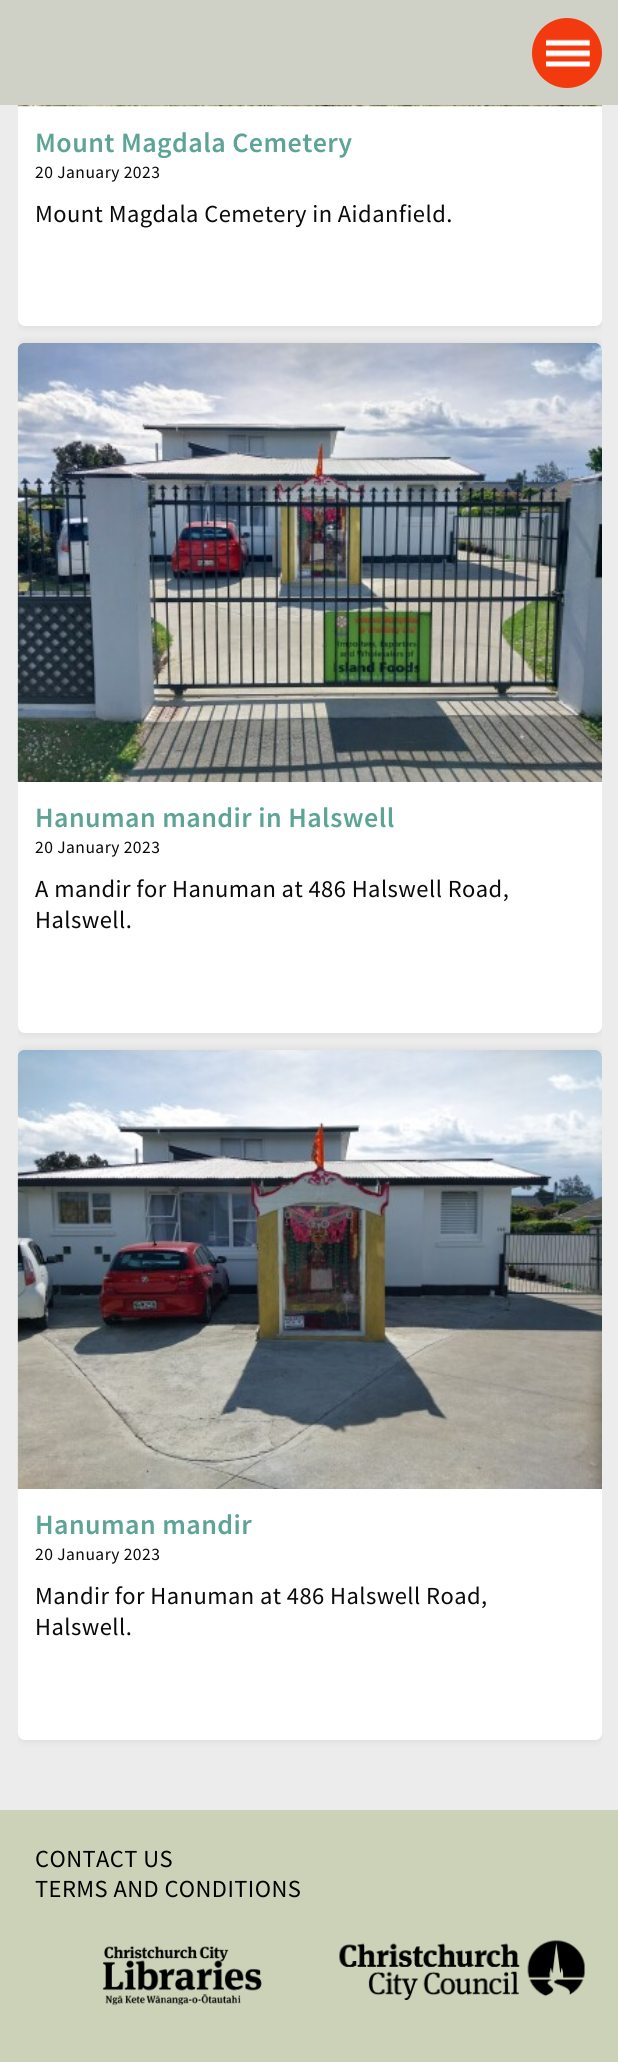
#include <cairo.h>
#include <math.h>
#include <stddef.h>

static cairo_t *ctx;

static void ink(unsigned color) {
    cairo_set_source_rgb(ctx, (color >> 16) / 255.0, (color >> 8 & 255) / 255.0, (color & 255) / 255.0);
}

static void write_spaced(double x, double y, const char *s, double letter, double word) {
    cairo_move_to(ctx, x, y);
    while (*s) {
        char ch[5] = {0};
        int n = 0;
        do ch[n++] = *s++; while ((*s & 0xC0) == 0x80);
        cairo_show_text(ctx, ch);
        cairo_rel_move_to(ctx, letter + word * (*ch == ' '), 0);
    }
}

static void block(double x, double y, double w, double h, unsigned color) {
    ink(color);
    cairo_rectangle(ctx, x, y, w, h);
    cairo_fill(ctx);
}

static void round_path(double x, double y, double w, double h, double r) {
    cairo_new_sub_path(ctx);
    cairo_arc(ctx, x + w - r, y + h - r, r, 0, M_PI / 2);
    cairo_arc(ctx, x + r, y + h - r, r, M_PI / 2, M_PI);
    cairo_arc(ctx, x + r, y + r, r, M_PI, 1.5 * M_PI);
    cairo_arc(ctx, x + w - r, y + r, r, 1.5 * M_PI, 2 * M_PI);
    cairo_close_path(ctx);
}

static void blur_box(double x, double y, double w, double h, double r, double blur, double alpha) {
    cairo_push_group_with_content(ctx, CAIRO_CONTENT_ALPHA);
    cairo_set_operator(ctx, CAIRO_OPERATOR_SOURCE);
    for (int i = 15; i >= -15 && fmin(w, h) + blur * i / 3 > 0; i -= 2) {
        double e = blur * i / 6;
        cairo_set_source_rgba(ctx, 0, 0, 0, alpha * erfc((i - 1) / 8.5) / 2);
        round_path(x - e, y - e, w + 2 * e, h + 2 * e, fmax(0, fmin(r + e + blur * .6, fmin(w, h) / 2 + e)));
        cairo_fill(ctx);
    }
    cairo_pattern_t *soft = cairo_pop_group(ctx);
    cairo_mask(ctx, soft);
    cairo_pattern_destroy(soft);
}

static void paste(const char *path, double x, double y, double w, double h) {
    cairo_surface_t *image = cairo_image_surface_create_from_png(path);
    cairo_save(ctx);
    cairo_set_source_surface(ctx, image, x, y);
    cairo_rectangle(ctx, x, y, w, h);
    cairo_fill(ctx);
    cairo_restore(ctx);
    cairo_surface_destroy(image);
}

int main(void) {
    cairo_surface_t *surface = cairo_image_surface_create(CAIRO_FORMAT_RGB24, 618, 2062);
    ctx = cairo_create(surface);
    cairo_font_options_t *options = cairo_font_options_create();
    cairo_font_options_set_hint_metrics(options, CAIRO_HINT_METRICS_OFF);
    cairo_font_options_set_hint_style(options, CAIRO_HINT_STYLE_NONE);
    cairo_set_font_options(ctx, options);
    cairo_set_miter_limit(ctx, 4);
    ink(0xececec);
    cairo_paint(ctx);
    cairo_save(ctx);
    cairo_rectangle(ctx, 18, 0, 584, 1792);
    cairo_clip(ctx);
    ink(0x000000);
    blur_box(18, -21, 584, 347, 7, 4.5, 0.1);
    cairo_restore(ctx);
    ink(0xffffff);
    round_path(18, -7, 584, 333, 7);
    cairo_fill(ctx);
    block(0, 0, 618, 105, 0xcfd0c6);
    ink(0xf3390e);
    cairo_arc(ctx, 567, 53, 35, 0, 2 * M_PI);
    cairo_fill(ctx);
    paste("pic1.png", 546, 39, 44, 28);
    paste("pic2.png", 17, 105, 585, 2);
    cairo_select_font_face(ctx, "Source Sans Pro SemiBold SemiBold", CAIRO_FONT_SLANT_NORMAL, CAIRO_FONT_WEIGHT_NORMAL);
    cairo_set_font_size(ctx, 28);
    ink(0x5da396);
    write_spaced(35, 152, "Mount Magdala Cemetery", 0.45, 0);
    cairo_select_font_face(ctx, "Source Sans Pro", CAIRO_FONT_SLANT_NORMAL, CAIRO_FONT_WEIGHT_NORMAL);
    cairo_set_font_size(ctx, 17.5);
    ink(0x0a0a0a);
    write_spaced(35, 178, "20 January 2023", 0.45, 0);
    cairo_set_font_size(ctx, 24.5);
    write_spaced(35, 222, "Mount Magdala Cemetery in Aidanfield.", 0.45, 0);
    cairo_save(ctx);
    cairo_rectangle(ctx, 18, 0, 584, 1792);
    cairo_clip(ctx);
    ink(0x000000);
    blur_box(18, 343, 584, 690, 7, 4.5, 0.1);
    cairo_restore(ctx);
    ink(0xffffff);
    round_path(18, 343, 584, 690, 7);
    cairo_fill(ctx);
    paste("pic3.png", 17, 343, 585, 439);
    cairo_select_font_face(ctx, "Source Sans Pro SemiBold SemiBold", CAIRO_FONT_SLANT_NORMAL, CAIRO_FONT_WEIGHT_NORMAL);
    cairo_set_font_size(ctx, 28);
    ink(0x5da396);
    write_spaced(35, 827, "Hanuman mandir in Halswell", 0.45, 0);
    cairo_select_font_face(ctx, "Source Sans Pro", CAIRO_FONT_SLANT_NORMAL, CAIRO_FONT_WEIGHT_NORMAL);
    cairo_set_font_size(ctx, 17.5);
    ink(0x0a0a0a);
    write_spaced(35, 853, "20 January 2023", 0.45, 0);
    cairo_set_font_size(ctx, 24.5);
    write_spaced(35, 897, "A mandir for Hanuman at 486 Halswell Road,", 0.45, 0);
    write_spaced(35, 928, "Halswell.", 0.45, 0);
    cairo_save(ctx);
    cairo_rectangle(ctx, 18, 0, 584, 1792);
    cairo_clip(ctx);
    ink(0x000000);
    blur_box(18, 1050, 584, 690, 7, 4.5, 0.1);
    cairo_restore(ctx);
    ink(0xffffff);
    round_path(18, 1050, 584, 690, 7);
    cairo_fill(ctx);
    paste("pic4.png", 17, 1050, 585, 439);
    cairo_select_font_face(ctx, "Source Sans Pro SemiBold SemiBold", CAIRO_FONT_SLANT_NORMAL, CAIRO_FONT_WEIGHT_NORMAL);
    cairo_set_font_size(ctx, 28);
    ink(0x5da396);
    write_spaced(35, 1534, "Hanuman mandir", 0.45, 0);
    cairo_select_font_face(ctx, "Source Sans Pro", CAIRO_FONT_SLANT_NORMAL, CAIRO_FONT_WEIGHT_NORMAL);
    cairo_set_font_size(ctx, 17.5);
    ink(0x0a0a0a);
    write_spaced(35, 1560, "20 January 2023", 0.45, 0);
    cairo_set_font_size(ctx, 24.5);
    write_spaced(35, 1604, "Mandir for Hanuman at 486 Halswell Road,", 0.45, 0);
    write_spaced(35, 1635, "Halswell.", 0.45, 0);
    block(0, 1810, 618, 252, 0xccd2b7);
    ink(0x000000);
    write_spaced(35, 1867, "CONTACT US", 0.45, 0);
    write_spaced(35, 1897, "TERMS AND CONDITIONS", 0.45, 0);
    paste("pic5.png", 102, 1946, 160, 60);
    paste("pic6.png", 339, 1940, 246, 60);
    cairo_surface_write_to_png(surface, "screenshot.png");
    cairo_font_options_destroy(options);
    cairo_destroy(ctx);
    cairo_surface_destroy(surface);
    return 0;
}
